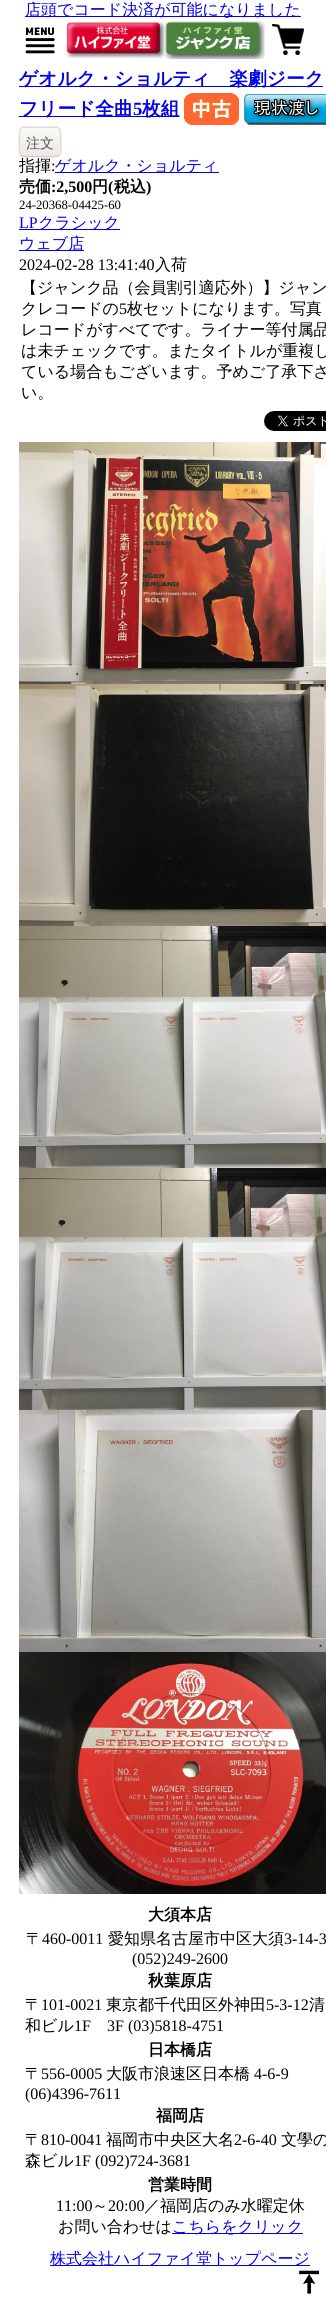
#include <cairo.h>
#include <math.h>
#include <stddef.h>

typedef struct { const char *family; double size; int italic, bold; unsigned color; } style_t;
static cairo_t *ctx;

static void ink(unsigned color) {
    cairo_set_source_rgb(ctx, (color >> 16) / 255.0, (color >> 8 & 255) / 255.0, (color & 255) / 255.0);
}

static void write(double x, double y, const char *s, const style_t *st) {
    cairo_select_font_face(ctx, st->family, st->italic ? CAIRO_FONT_SLANT_ITALIC : CAIRO_FONT_SLANT_NORMAL,
        st->bold ? CAIRO_FONT_WEIGHT_BOLD : CAIRO_FONT_WEIGHT_NORMAL);
    cairo_set_font_size(ctx, st->size);
    ink(st->color);
    cairo_move_to(ctx, x, y);
    cairo_show_text(ctx, s);
}

static void block(double x, double y, double w, double h, unsigned color) {
    ink(color);
    cairo_rectangle(ctx, x, y, w, h);
    cairo_fill(ctx);
}

static void round_path(double x, double y, double w, double h, double r) {
    cairo_new_sub_path(ctx);
    cairo_arc(ctx, x + w - r, y + h - r, r, 0, M_PI / 2);
    cairo_arc(ctx, x + r, y + h - r, r, M_PI / 2, M_PI);
    cairo_arc(ctx, x + r, y + r, r, M_PI, 1.5 * M_PI);
    cairo_arc(ctx, x + w - r, y + r, r, 1.5 * M_PI, 2 * M_PI);
    cairo_close_path(ctx);
}

static void blur_box(double x, double y, double w, double h, double r, double blur, double alpha) {
    cairo_push_group_with_content(ctx, CAIRO_CONTENT_ALPHA);
    cairo_set_operator(ctx, CAIRO_OPERATOR_SOURCE);
    for (int i = 15; i >= -15 && fmin(w, h) + blur * i / 3 > 0; i -= 2) {
        double e = blur * i / 6;
        cairo_set_source_rgba(ctx, 0, 0, 0, alpha * erfc((i - 1) / 8.5) / 2);
        round_path(x - e, y - e, w + 2 * e, h + 2 * e, fmax(0, fmin(r + e + blur * .6, fmin(w, h) / 2 + e)));
        cairo_fill(ctx);
    }
    cairo_pattern_t *soft = cairo_pop_group(ctx);
    cairo_mask(ctx, soft);
    cairo_pattern_destroy(soft);
}

static void paste(const char *path, double x, double y, double w, double h) {
    cairo_surface_t *image = cairo_image_surface_create_from_png(path);
    cairo_save(ctx);
    cairo_set_source_surface(ctx, image, x, y);
    cairo_rectangle(ctx, x, y, w, h);
    cairo_fill(ctx);
    cairo_restore(ctx);
    cairo_surface_destroy(image);
}

static const style_t s1 = {"WenQuanYi Zen Hei Medium", 16, 0, 0, 0x0000ee};
static const style_t s2 = {"WenQuanYi Zen Hei", 18.75, 0, 1, 0x0000ee};
static const style_t s3 = {"Liberation Serif", 18.75, 0, 1, 0x0000ee};
static const style_t s4 = {"WenQuanYi Zen Hei Medium", 14, 0, 0, 0x504e4e};
static const style_t s5 = {"WenQuanYi Zen Hei Medium", 16, 0, 0, 0x000000};
static const style_t s6 = {"Liberation Serif", 16, 0, 0, 0x000000};
static const style_t s7 = {"WenQuanYi Zen Hei", 16, 0, 1, 0x000000};
static const style_t s8 = {"Liberation Serif", 16, 0, 1, 0x000000};
static const style_t s9 = {"Liberation Serif", 12.75, 0, 0, 0x000000};
static const style_t s10 = {"Liberation Serif", 16, 0, 0, 0x0000ee};

int main(void) {
    cairo_surface_t *surface = cairo_image_surface_create(CAIRO_FORMAT_RGB24, 326, 2299);
    ctx = cairo_create(surface);
    cairo_font_options_t *options = cairo_font_options_create();
    cairo_font_options_set_hint_metrics(options, CAIRO_HINT_METRICS_OFF);
    cairo_font_options_set_hint_style(options, CAIRO_HINT_STYLE_NONE);
    cairo_set_font_options(ctx, options);
    cairo_set_miter_limit(ctx, 4);
    cairo_pattern_t *gradient;
    ink(0xffffff);
    cairo_paint(ctx);
    block(25, 16, 276, 1, 0x0000ee);
    write(25, 15, "店頭でコード決済が可能になりました", &s1);
    paste("pic1.png", 25, 27, 30, 27);
    paste("pic2.png", 66, 22, 99, 36);
    paste("pic3.png", 165, 21, 100, 38);
    paste("pic4.png", 272, 24, 32, 31);
    block(19, 86, 304, 1, 0x0000ee);
    write(19, 85, "ゲオルク・ショルティ　楽劇ジーク", &s2);
    block(19, 116, 160, 1, 0x0000ee);
    write(19, 115, "フリード全曲", &s2);
    write(133, 115, "5", &s3);
    write(142, 115, "枚組", &s2);
    paste("pic5.png", 184, 93, 55, 32);
    paste("pic6.png", 244, 94, 82, 31);
    ink(0xc7c5c1);
    blur_box(19, 127, 42, 30, 5, 0.5, 1);
    cairo_save(ctx);
    round_path(19, 127, 42, 30, 5);
    cairo_clip(ctx);
    gradient = cairo_pattern_create_linear(20, 100, 20, 128);
    cairo_pattern_add_color_stop_rgba(gradient, 0, 0.984, 0.98, 0.957, 1);
    cairo_pattern_add_color_stop_rgba(gradient, 1, 0.925, 0.91, 0.902, 1);
    cairo_set_source(ctx, gradient);
    cairo_pattern_destroy(gradient);
    cairo_rectangle(ctx, 19, 127, 42, 1);
    cairo_fill(ctx);
    gradient = cairo_pattern_create_linear(20, 128, 20, 156);
    cairo_pattern_add_color_stop_rgba(gradient, 0, 0.984, 0.98, 0.957, 1);
    cairo_pattern_add_color_stop_rgba(gradient, 1, 0.925, 0.91, 0.902, 1);
    cairo_set_source(ctx, gradient);
    cairo_pattern_destroy(gradient);
    cairo_rectangle(ctx, 19, 128, 42, 28);
    cairo_fill(ctx);
    cairo_restore(ctx);
    cairo_save(ctx);
    cairo_rectangle(ctx, 19, 66, 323, 90);
    cairo_clip(ctx);
    cairo_new_path(ctx);
    cairo_move_to(ctx, 59, 155);
    cairo_curve_to(ctx, 58.5, 156, 57, 156.5, 56, 156.5);
    cairo_line_to(ctx, 24, 156.5);
    cairo_curve_to(ctx, 23, 156.5, 21.5, 156, 21, 155);
    ink(0xc1c1bd);
    cairo_set_line_width(ctx, 1);
    cairo_stroke(ctx);
    cairo_new_path(ctx);
    cairo_move_to(ctx, 21, 155);
    cairo_curve_to(ctx, 18, 152.5, 19.5, 145, 19.5, 142);
    cairo_curve_to(ctx, 19.5, 123.5, 19.5, 127.5, 40, 127.5);
    cairo_curve_to(ctx, 60.5, 127.5, 60.5, 123.5, 60.5, 142);
    cairo_curve_to(ctx, 60.5, 145, 62, 152.5, 59, 155);
    ink(0xdcd9d8);
    cairo_stroke(ctx);
    cairo_restore(ctx);
    write(26, 148, "注文", &s4);
    write(19, 171, "指揮", &s5);
    write(51, 171, ":", &s6);
    block(55, 172, 164, 1, 0x0000ee);
    write(55, 171, "ゲオルク・ショルティ", &s1);
    write(19, 192, "売価", &s7);
    write(51, 192, ":2,500", &s8);
    write(92, 192, "円", &s7);
    write(108, 192, "(", &s8);
    write(114, 192, "税込", &s7);
    write(146, 192, ")", &s8);
    write(19, 209, "24-20368-04425-60", &s9);
    write(19, 228, "LP", &s10);
    block(19, 229, 101, 1, 0x0000ee);
    write(38, 228, "クラシック", &s1);
    block(19, 250, 65, 1, 0x0000ee);
    write(19, 249, "ウェブ店", &s1);
    write(19, 270, "2024-02-28 13:41:40", &s6);
    write(155, 270, "入荷", &s5);
    write(21, 293, "【ジャンク品（会員割引適応外）】ジャン", &s5);
    write(21, 314, "クレコードの", &s5);
    write(119, 314, "5", &s6);
    write(127, 314, "枚セットになります。写真", &s5);
    write(21, 335, "レコードがすべてです。ライナー等付属品", &s5);
    write(21, 356, "は未チェックです。またタイトルが重複し", &s5);
    write(21, 377, "ている場合もございます。予めご了承下さ", &s5);
    write(21, 398, "い。", &s5);
    paste("pic7.png", 264, 411, 62, 20);
    paste("pic8.png", 19, 442, 307, 242);
    paste("pic9.png", 19, 684, 307, 242);
    paste("pic10.png", 19, 926, 307, 242);
    paste("pic11.png", 19, 1168, 307, 242);
    paste("pic12.png", 19, 1410, 307, 242);
    paste("pic13.png", 19, 1652, 307, 242);
    write(148, 1920, "大須本店", &s7);
    write(26, 1944, "〒", &s5);
    write(42, 1944, "460-0011", &s6);
    write(108, 1944, "愛知県名古屋市中区大須", &s5);
    write(284, 1944, "3-14-3", &s6);
    write(132, 1964, "(052)249-2600", &s6);
    write(148, 1986, "秋葉原店", &s7);
    write(25, 2010, "〒", &s5);
    write(41, 2010, "101-0021", &s6);
    write(106, 2010, "東京都千代田区外神田", &s5);
    write(266, 2010, "5-3-12", &s6);
    write(309, 2010, "清", &s5);
    write(25, 2031, "和ビル", &s5);
    write(74, 2031, "1F", &s6);
    write(107, 2031, "3F (03)5818-4751", &s6);
    write(148, 2055, "日本橋店", &s7);
    write(25, 2079, "〒", &s5);
    write(41, 2079, "556-0005", &s6);
    write(106, 2079, "大阪市浪速区日本橋", &s5);
    write(254, 2079, "4-6-9", &s6);
    write(25, 2099, "(06)4396-7611", &s6);
    write(156, 2121, "福岡店", &s7);
    write(25, 2145, "〒", &s5);
    write(41, 2145, "810-0041", &s6);
    write(106, 2145, "福岡市中央区大名", &s5);
    write(234, 2145, "2-6-40", &s6);
    write(281, 2145, "文學の", &s5);
    write(25, 2166, "森ビル", &s5);
    write(74, 2166, "1F (092)724-3681", &s6);
    write(148, 2190, "営業時間", &s7);
    write(56, 2211, "11:00", &s6);
    write(92, 2211, "～", &s5);
    write(108, 2211, "20:00", &s6);
    write(144, 2211, "／福岡店のみ水曜定休", &s5);
    write(58, 2232, "お問い合わせは", &s5);
    block(172, 2233, 131, 1, 0x0000ee);
    write(172, 2232, "こちらをクリック", &s1);
    block(50, 2265, 260, 1, 0x0000ee);
    write(50, 2264, "株式会社ハイファイ堂トップページ", &s1);
    paste("pic14.png", 299, 2270, 20, 24);
    cairo_surface_write_to_png(surface, "screenshot.png");
    cairo_font_options_destroy(options);
    cairo_destroy(ctx);
    cairo_surface_destroy(surface);
    return 0;
}
